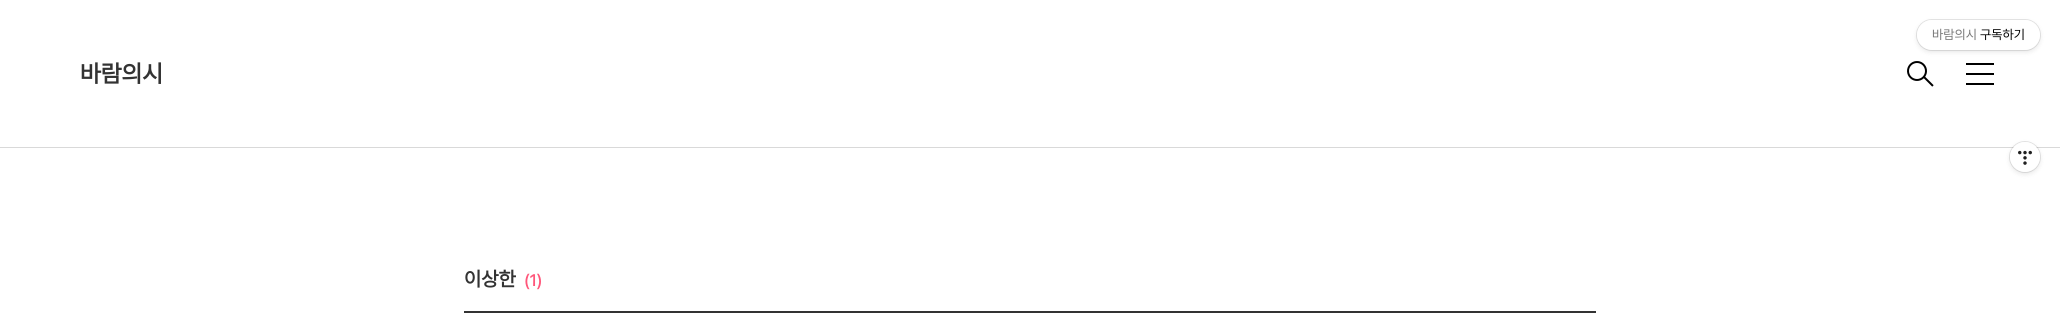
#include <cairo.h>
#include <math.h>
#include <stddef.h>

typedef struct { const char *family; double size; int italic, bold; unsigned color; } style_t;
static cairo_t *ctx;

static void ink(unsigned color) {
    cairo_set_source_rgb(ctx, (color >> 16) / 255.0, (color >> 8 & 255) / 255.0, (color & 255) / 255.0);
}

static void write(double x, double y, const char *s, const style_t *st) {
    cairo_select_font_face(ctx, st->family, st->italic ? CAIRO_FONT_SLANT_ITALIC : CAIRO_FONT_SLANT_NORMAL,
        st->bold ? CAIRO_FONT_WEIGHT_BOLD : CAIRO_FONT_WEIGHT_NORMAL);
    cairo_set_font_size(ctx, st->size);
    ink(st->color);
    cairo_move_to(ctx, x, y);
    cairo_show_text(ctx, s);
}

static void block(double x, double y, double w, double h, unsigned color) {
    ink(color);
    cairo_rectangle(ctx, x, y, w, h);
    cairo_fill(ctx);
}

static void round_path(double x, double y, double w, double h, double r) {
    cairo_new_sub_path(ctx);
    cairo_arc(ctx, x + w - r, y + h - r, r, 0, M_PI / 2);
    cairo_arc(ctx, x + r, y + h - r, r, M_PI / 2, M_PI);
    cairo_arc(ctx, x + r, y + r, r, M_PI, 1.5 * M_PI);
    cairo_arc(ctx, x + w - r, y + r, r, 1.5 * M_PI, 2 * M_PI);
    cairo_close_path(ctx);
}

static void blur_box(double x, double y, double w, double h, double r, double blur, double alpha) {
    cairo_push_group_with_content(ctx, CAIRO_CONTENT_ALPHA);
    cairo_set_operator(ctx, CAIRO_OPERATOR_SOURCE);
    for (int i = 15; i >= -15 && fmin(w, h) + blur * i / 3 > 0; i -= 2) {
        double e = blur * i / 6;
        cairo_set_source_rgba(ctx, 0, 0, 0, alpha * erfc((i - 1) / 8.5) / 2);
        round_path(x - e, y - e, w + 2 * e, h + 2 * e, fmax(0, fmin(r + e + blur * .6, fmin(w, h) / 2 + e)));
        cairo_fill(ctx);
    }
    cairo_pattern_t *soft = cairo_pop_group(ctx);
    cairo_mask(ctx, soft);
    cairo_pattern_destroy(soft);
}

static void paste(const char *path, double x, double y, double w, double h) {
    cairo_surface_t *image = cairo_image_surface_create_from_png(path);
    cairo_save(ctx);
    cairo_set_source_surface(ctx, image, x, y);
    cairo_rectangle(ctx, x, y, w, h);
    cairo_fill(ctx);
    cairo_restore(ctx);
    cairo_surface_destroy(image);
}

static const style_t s1 = {"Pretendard", 13, 0, 0, 0x777777};
static const style_t s2 = {"Pretendard", 13, 0, 0, 0x000000};
static const style_t s3 = {"Pretendard", 24, 0, 1, 0x333333};
static const style_t s4 = {"Pretendard", 20, 0, 1, 0x333333};
static const style_t s5 = {"Pretendard", 16, 0, 1, 0xff567a};

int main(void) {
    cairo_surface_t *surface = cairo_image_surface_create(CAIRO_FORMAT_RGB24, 2060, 313);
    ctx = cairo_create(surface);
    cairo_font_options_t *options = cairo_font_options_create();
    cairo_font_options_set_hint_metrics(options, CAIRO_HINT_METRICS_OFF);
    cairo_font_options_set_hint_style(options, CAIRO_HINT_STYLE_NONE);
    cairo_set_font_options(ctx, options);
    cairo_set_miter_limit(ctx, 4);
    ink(0xffffff);
    cairo_paint(ctx);
    ink(0x000000);
    blur_box(1917, 22, 123, 30, 15, 2.5, 0.1);
    round_path(1916.5, 19.5, 124, 31, 15.5);
    cairo_set_source_rgba(ctx, 0, 0, 0, 0.1);
    cairo_set_line_width(ctx, 1);
    cairo_stroke(ctx);
    ink(0xffffff);
    round_path(1917, 20, 123, 30, 15);
    cairo_fill(ctx);
    write(1932, 39, "바람의시", &s1);
    write(1980, 39, "구독하기", &s2);
    block(0, 147, 2060, 1, 0xd9d9d9);
    write(80, 82, "바람의시", &s3);
    paste("pic1.png", 1907, 61, 27, 26);
    paste("pic2.png", 1966, 63, 28, 22);
    write(464, 286, "이상한", &s4);
    write(524, 286, "(1)", &s5);
    block(464, 311, 1132, 2, 0x333333);
    ink(0x000000);
    blur_box(2010, 144, 30, 30, 15, 2.5, 0.1);
    cairo_arc(ctx, 2025, 157, 15.5, 0, 2 * M_PI);
    cairo_set_source_rgba(ctx, 0, 0, 0, 0.1);
    cairo_stroke(ctx);
    ink(0xffffff);
    cairo_arc(ctx, 2025, 157, 15, 0, 2 * M_PI);
    cairo_fill(ctx);
    paste("pic3.png", 2018, 150, 14, 15);
    cairo_surface_write_to_png(surface, "screenshot.png");
    cairo_font_options_destroy(options);
    cairo_destroy(ctx);
    cairo_surface_destroy(surface);
    return 0;
}
